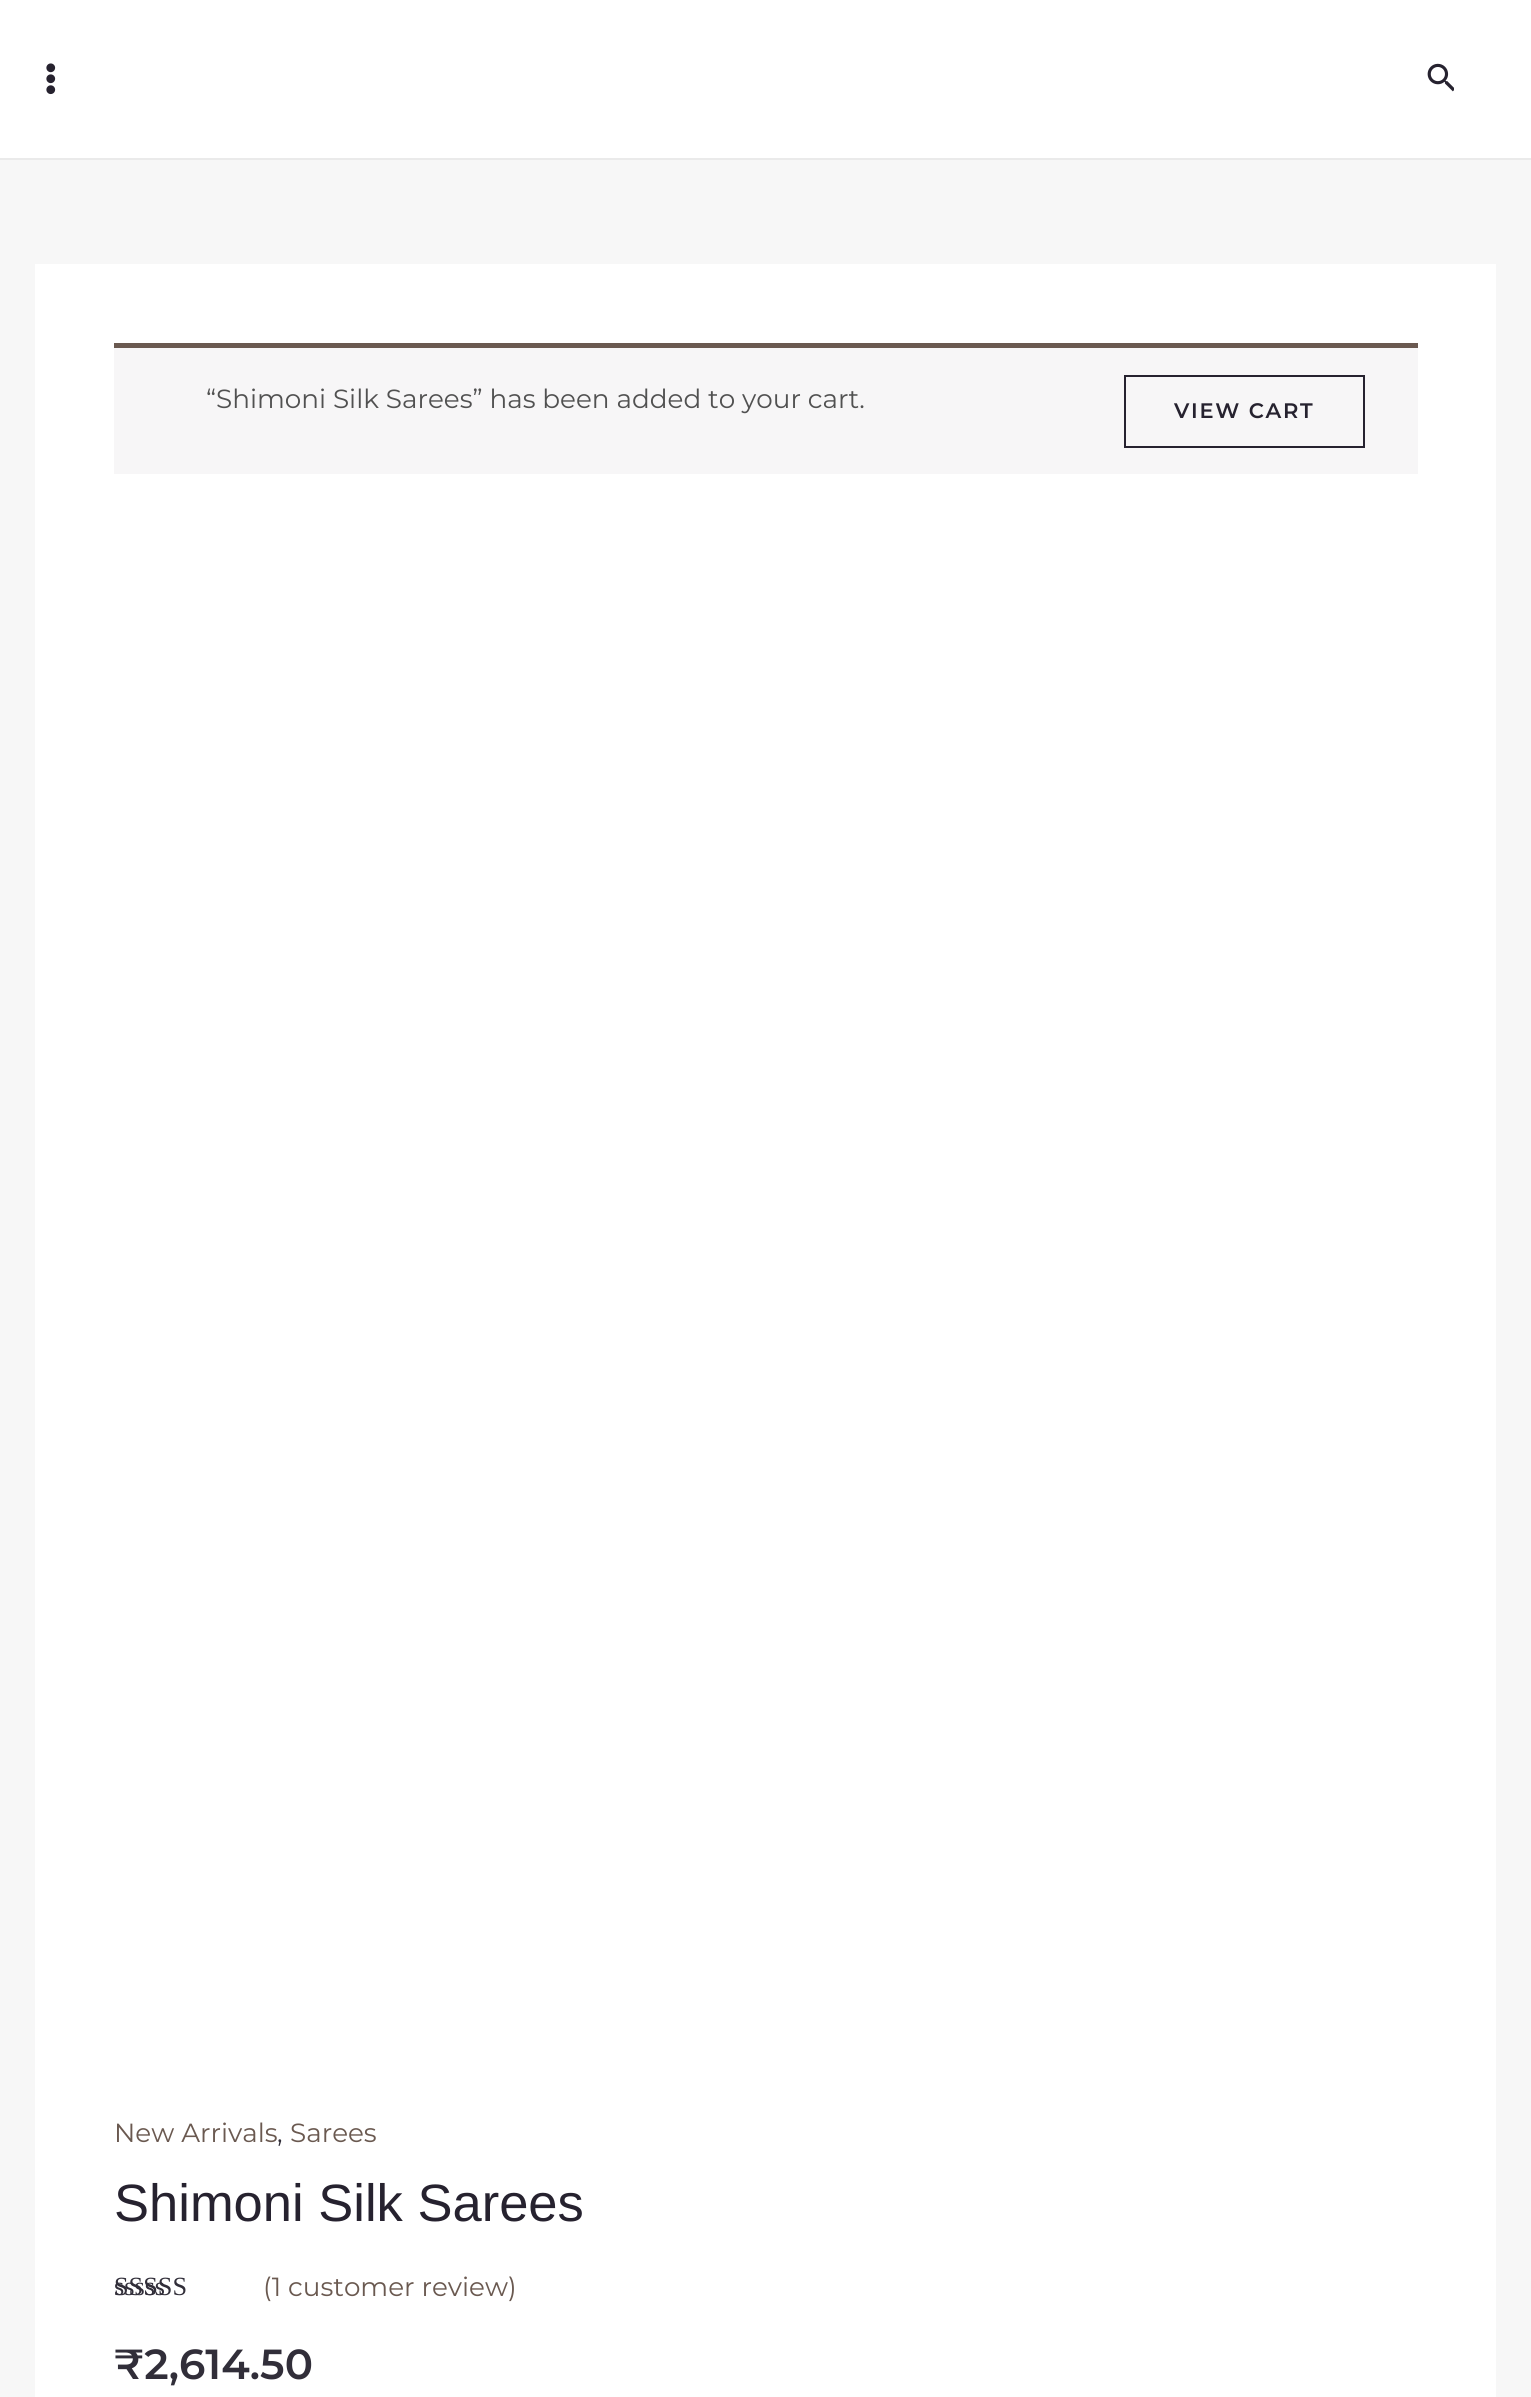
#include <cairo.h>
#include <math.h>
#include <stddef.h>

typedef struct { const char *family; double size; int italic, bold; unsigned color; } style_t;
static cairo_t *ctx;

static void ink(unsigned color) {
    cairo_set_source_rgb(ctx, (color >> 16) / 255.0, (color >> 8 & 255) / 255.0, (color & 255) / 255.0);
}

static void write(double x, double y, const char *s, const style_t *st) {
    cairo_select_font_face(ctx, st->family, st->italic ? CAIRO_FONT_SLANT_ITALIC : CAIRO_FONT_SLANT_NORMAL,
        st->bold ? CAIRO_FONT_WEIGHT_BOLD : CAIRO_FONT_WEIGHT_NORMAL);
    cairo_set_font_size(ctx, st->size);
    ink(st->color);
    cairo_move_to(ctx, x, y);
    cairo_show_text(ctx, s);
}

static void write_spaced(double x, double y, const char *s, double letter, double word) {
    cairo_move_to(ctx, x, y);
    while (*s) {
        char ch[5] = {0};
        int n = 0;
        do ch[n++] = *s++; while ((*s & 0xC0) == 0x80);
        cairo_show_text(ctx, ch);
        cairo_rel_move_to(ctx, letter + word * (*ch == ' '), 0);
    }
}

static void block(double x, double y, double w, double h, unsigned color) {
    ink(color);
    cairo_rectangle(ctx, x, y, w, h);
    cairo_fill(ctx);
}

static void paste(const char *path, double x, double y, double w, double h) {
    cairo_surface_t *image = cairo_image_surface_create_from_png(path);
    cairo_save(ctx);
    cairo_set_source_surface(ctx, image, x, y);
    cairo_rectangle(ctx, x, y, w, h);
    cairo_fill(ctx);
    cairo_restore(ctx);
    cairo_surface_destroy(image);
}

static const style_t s1 = {"Montserrat", 26.25, 0, 0, 0x515151};
static const style_t s2 = {"Montserrat", 26.25, 0, 0, 0x6a5950};
static const style_t s3 = {"Montserrat", 26.25, 0, 0, 0x312e39};
static const style_t s4 = {"Liberation Sans", 52.5, 0, 0, 0x26222f};
static const style_t s5 = {"Liberation Serif", 26.25, 0, 0, 0x312e39};
static const style_t s6 = {"Montserrat SemiBold", 42, 0, 0, 0x312e39};

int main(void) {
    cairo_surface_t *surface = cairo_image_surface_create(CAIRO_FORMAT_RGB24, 1531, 2397);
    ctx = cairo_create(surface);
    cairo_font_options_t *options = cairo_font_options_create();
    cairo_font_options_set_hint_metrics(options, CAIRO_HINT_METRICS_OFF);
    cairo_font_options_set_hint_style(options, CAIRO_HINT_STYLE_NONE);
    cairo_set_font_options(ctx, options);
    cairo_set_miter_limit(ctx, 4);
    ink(0xf7f7f7);
    cairo_paint(ctx);
    block(0, 0, 1531, 158, 0xffffff);
    block(0, 158, 1531, 2, 0xeaeaea);
    paste("pic1.png", 46, 63, 10, 32);
    paste("pic2.png", 1427, 63, 27, 29);
    block(35, 264, 1461, 2133, 0xffffff);
    block(114, 348, 1304, 126, 0xf7f6f7);
    block(114, 343, 1304, 5, 0x6a5950);
    write(206, 408, "“Shimoni Silk Sarees” has been added to your cart.", &s1);
    cairo_rectangle(ctx, 1125, 376, 239, 71);
    ink(0x26222f);
    cairo_stroke(ctx);
    cairo_select_font_face(ctx, "Montserrat SemiBold", CAIRO_FONT_SLANT_NORMAL, CAIRO_FONT_WEIGHT_NORMAL);
    cairo_set_font_size(ctx, 21);
    write_spaced(1174, 418, "VIEW CART", 1.75, 0);
    write(114, 2142, "New Arrivals", &s2);
    write(277, 2142, ",", &s3);
    write(290, 2142, "Sarees", &s2);
    write(114, 2221, "Shimoni Silk Sarees", &s4);
    write(114, 2295, "sssss", &s5);
    write(114, 2295, "SSSSS", &s5);
    write(263, 2296, "(1 customer review)", &s2);
    write(114, 2379, "₹2,614.50", &s6);
    cairo_surface_write_to_png(surface, "screenshot.png");
    cairo_font_options_destroy(options);
    cairo_destroy(ctx);
    cairo_surface_destroy(surface);
    return 0;
}
